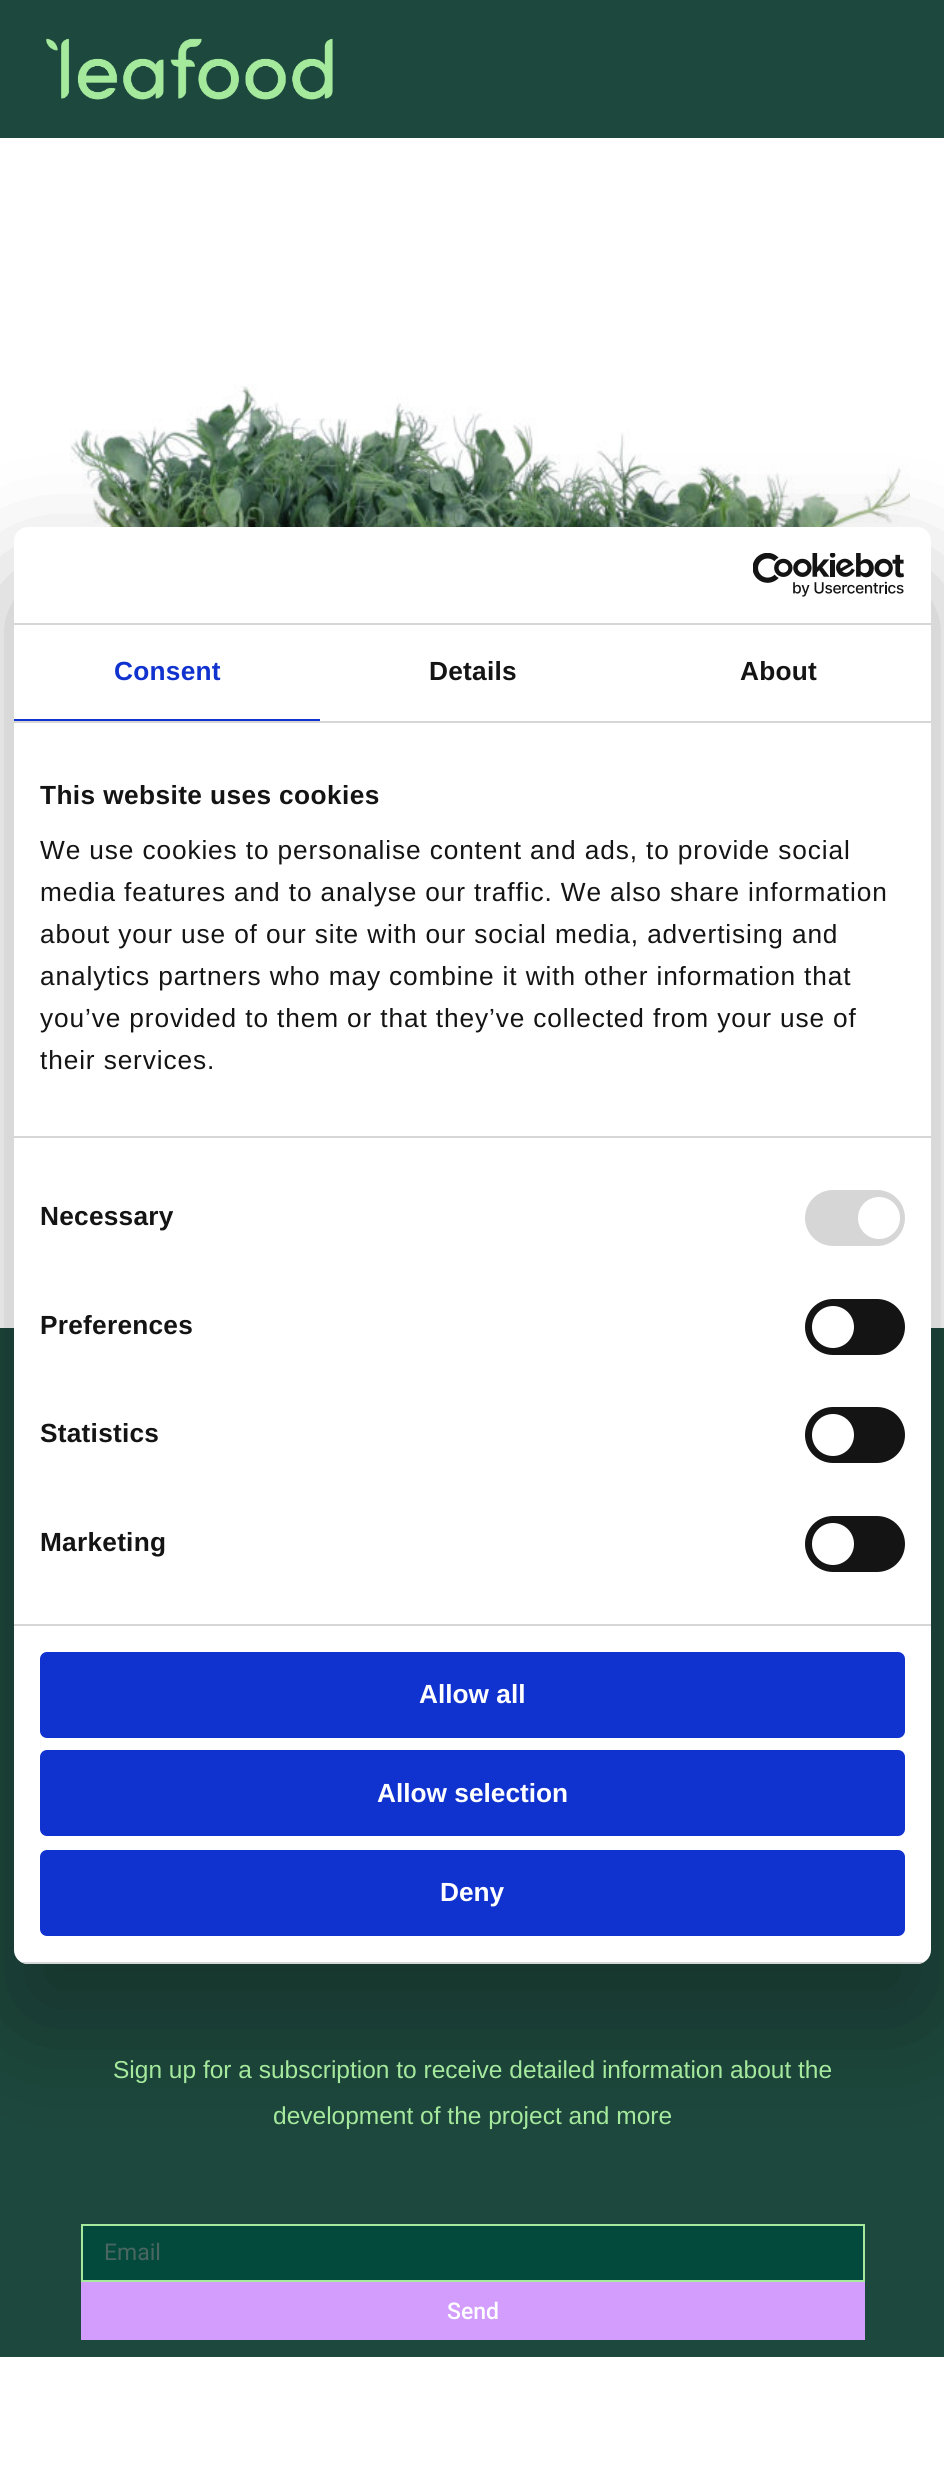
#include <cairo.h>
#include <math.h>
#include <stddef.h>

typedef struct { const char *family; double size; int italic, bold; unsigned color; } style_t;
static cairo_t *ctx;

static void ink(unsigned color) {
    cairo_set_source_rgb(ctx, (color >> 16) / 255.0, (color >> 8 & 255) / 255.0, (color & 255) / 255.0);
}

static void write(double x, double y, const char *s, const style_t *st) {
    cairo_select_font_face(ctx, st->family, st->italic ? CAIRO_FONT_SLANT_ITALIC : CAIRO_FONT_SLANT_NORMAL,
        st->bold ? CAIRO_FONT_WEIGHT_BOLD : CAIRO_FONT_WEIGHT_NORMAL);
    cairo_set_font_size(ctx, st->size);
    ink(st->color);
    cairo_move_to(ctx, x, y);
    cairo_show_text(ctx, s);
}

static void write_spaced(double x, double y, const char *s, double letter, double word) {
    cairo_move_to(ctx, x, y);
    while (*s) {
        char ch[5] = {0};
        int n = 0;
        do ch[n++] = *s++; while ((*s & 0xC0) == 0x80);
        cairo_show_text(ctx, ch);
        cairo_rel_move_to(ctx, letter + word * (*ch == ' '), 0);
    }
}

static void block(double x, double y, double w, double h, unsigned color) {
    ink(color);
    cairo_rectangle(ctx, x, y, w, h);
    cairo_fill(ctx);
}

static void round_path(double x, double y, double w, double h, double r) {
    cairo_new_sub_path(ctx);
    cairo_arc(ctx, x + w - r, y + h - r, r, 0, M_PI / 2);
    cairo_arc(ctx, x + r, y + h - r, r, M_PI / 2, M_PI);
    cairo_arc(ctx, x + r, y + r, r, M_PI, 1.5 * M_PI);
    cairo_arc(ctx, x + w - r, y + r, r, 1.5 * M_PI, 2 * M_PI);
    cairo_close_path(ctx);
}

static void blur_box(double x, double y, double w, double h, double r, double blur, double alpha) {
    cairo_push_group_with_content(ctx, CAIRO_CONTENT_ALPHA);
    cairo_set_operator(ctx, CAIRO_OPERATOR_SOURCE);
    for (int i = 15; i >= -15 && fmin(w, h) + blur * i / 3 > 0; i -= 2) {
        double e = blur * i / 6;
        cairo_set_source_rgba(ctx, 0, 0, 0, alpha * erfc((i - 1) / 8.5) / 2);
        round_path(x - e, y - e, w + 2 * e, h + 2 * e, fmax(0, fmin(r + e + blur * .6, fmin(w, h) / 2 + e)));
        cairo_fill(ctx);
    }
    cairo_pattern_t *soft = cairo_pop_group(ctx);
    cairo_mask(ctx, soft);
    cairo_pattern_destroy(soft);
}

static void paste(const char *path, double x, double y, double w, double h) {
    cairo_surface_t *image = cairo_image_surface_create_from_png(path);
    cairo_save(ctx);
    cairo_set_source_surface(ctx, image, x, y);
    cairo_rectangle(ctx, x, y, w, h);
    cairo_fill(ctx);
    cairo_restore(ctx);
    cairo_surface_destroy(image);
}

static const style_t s1 = {"Liberation Sans", 26.25, 0, 1, 0xffffff};
static const style_t s2 = {"Liberation Sans", 24.5, 0, 0, 0xa5e99d};
static const style_t s3 = {"Roboto", 23, 0, 0, 0x4a6661};
static const style_t s4 = {"Roboto Medium", 23, 0, 0, 0xffffff};

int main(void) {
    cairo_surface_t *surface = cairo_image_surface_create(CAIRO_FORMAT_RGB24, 944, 2486);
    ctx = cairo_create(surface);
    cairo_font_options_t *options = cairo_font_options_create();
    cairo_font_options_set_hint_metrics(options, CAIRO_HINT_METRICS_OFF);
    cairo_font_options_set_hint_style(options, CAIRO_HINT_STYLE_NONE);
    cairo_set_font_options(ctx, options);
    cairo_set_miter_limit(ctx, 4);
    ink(0xffffff);
    cairo_paint(ctx);
    paste("pic3.png", 70, 384, 840, 143);
    block(0, 1328, 944, 1029, 0x1d483d);
    ink(0x000000);
    blur_box(14, 583, 917, 1437, 14, 59.5, 0.3);
    ink(0xffffff);
    round_path(14, 527, 917, 1437, 14);
    cairo_fill(ctx);
    block(14, 623, 917, 2, 0xd6d6d6);
    paste("pic1.png", 753, 553, 152, 44);
    block(14, 721, 917, 2, 0xd6d6d6);
    block(14, 719, 306, 2, 0x1032cf);
    cairo_select_font_face(ctx, "Liberation Sans", CAIRO_FONT_SLANT_NORMAL, CAIRO_FONT_WEIGHT_BOLD);
    cairo_set_font_size(ctx, 26.25);
    write_spaced(114, 680, "Consent", 0.25, 0);
    ink(0x141414);
    write_spaced(429, 680, "Details", 0.25, 0);
    write_spaced(740, 680, "About", 0.25, 0);
    block(14, 1136, 917, 2, 0xd6d6d6);
    ink(0x141414);
    write_spaced(40, 804, "This website uses cookies", 0.4, 0);
    cairo_select_font_face(ctx, "Liberation Sans", CAIRO_FONT_SLANT_NORMAL, CAIRO_FONT_WEIGHT_NORMAL);
    write_spaced(40, 859, "We use cookies to personalise content and ads, to provide social", 0.88, 0);
    write_spaced(40, 901, "media features and to analyse our traffic. We also share information", 0.88, 0);
    write_spaced(40, 943, "about your use of our site with our social media, advertising and", 0.88, 0);
    write_spaced(40, 985, "analytics partners who may combine it with other information that", 0.88, 0);
    write_spaced(40, 1027, "you’ve provided to them or that they’ve collected from your use of", 0.88, 0);
    write_spaced(40, 1069, "their services.", 0.88, 0);
    block(14, 1624, 917, 2, 0xd6d6d6);
    cairo_select_font_face(ctx, "Liberation Sans", CAIRO_FONT_SLANT_NORMAL, CAIRO_FONT_WEIGHT_BOLD);
    ink(0x141414);
    write_spaced(40, 1225, "Necessary", 0.25, 0);
    ink(0xd6d6d6);
    round_path(805, 1190, 100, 56, 28);
    cairo_fill(ctx);
    ink(0xffffff);
    cairo_arc(ctx, 879, 1218, 21, 0, 2 * M_PI);
    cairo_fill(ctx);
    ink(0x141414);
    write_spaced(40, 1334, "Preferences", 0.25, 0);
    round_path(805, 1299, 100, 56, 28);
    cairo_fill(ctx);
    ink(0xffffff);
    cairo_arc(ctx, 833, 1327, 21, 0, 2 * M_PI);
    cairo_fill(ctx);
    ink(0x141414);
    write_spaced(40, 1442, "Statistics", 0.25, 0);
    round_path(805, 1407, 100, 56, 28);
    cairo_fill(ctx);
    ink(0xffffff);
    cairo_arc(ctx, 833, 1435, 21, 0, 2 * M_PI);
    cairo_fill(ctx);
    ink(0x141414);
    write_spaced(40, 1551, "Marketing", 0.25, 0);
    round_path(805, 1516, 100, 56, 28);
    cairo_fill(ctx);
    ink(0xffffff);
    cairo_arc(ctx, 833, 1544, 21, 0, 2 * M_PI);
    cairo_fill(ctx);
    cairo_save(ctx);
    round_path(14, 527, 917, 1437, 14);
    cairo_clip(ctx);
    block(14, 1962, 917, 2, 0xd6d6d6);
    cairo_restore(ctx);
    ink(0x1032cf);
    round_path(42, 1654, 861, 82, 5);
    cairo_fill_preserve(ctx);
    cairo_set_line_width(ctx, 4);
    cairo_stroke(ctx);
    write(419, 1703, "Allow all", &s1);
    ink(0x1032cf);
    round_path(42, 1752, 861, 82, 5);
    cairo_fill_preserve(ctx);
    cairo_stroke(ctx);
    write(377, 1802, "Allow selection", &s1);
    ink(0x1032cf);
    round_path(42, 1852, 861, 82, 5);
    cairo_fill_preserve(ctx);
    cairo_stroke(ctx);
    write(440, 1901, "Deny", &s1);
    block(0, 0, 944, 138, 0x1d483d);
    paste("pic2.png", 46, 38, 287, 62);
    write(113, 2078, "Sign up for a subscription to receive detailed information about the", &s2);
    write(273, 2124, "development of the project and more", &s2);
    ink(0x03493c);
    cairo_rectangle(ctx, 82, 2225, 782, 56);
    cairo_fill_preserve(ctx);
    ink(0xa5e99d);
    cairo_set_line_width(ctx, 2);
    cairo_stroke(ctx);
    write(104, 2260, "Email", &s3);
    block(81, 2282, 784, 58, 0xd29dfc);
    write(447, 2319, "Send", &s4);
    cairo_surface_write_to_png(surface, "screenshot.png");
    cairo_font_options_destroy(options);
    cairo_destroy(ctx);
    cairo_surface_destroy(surface);
    return 0;
}
